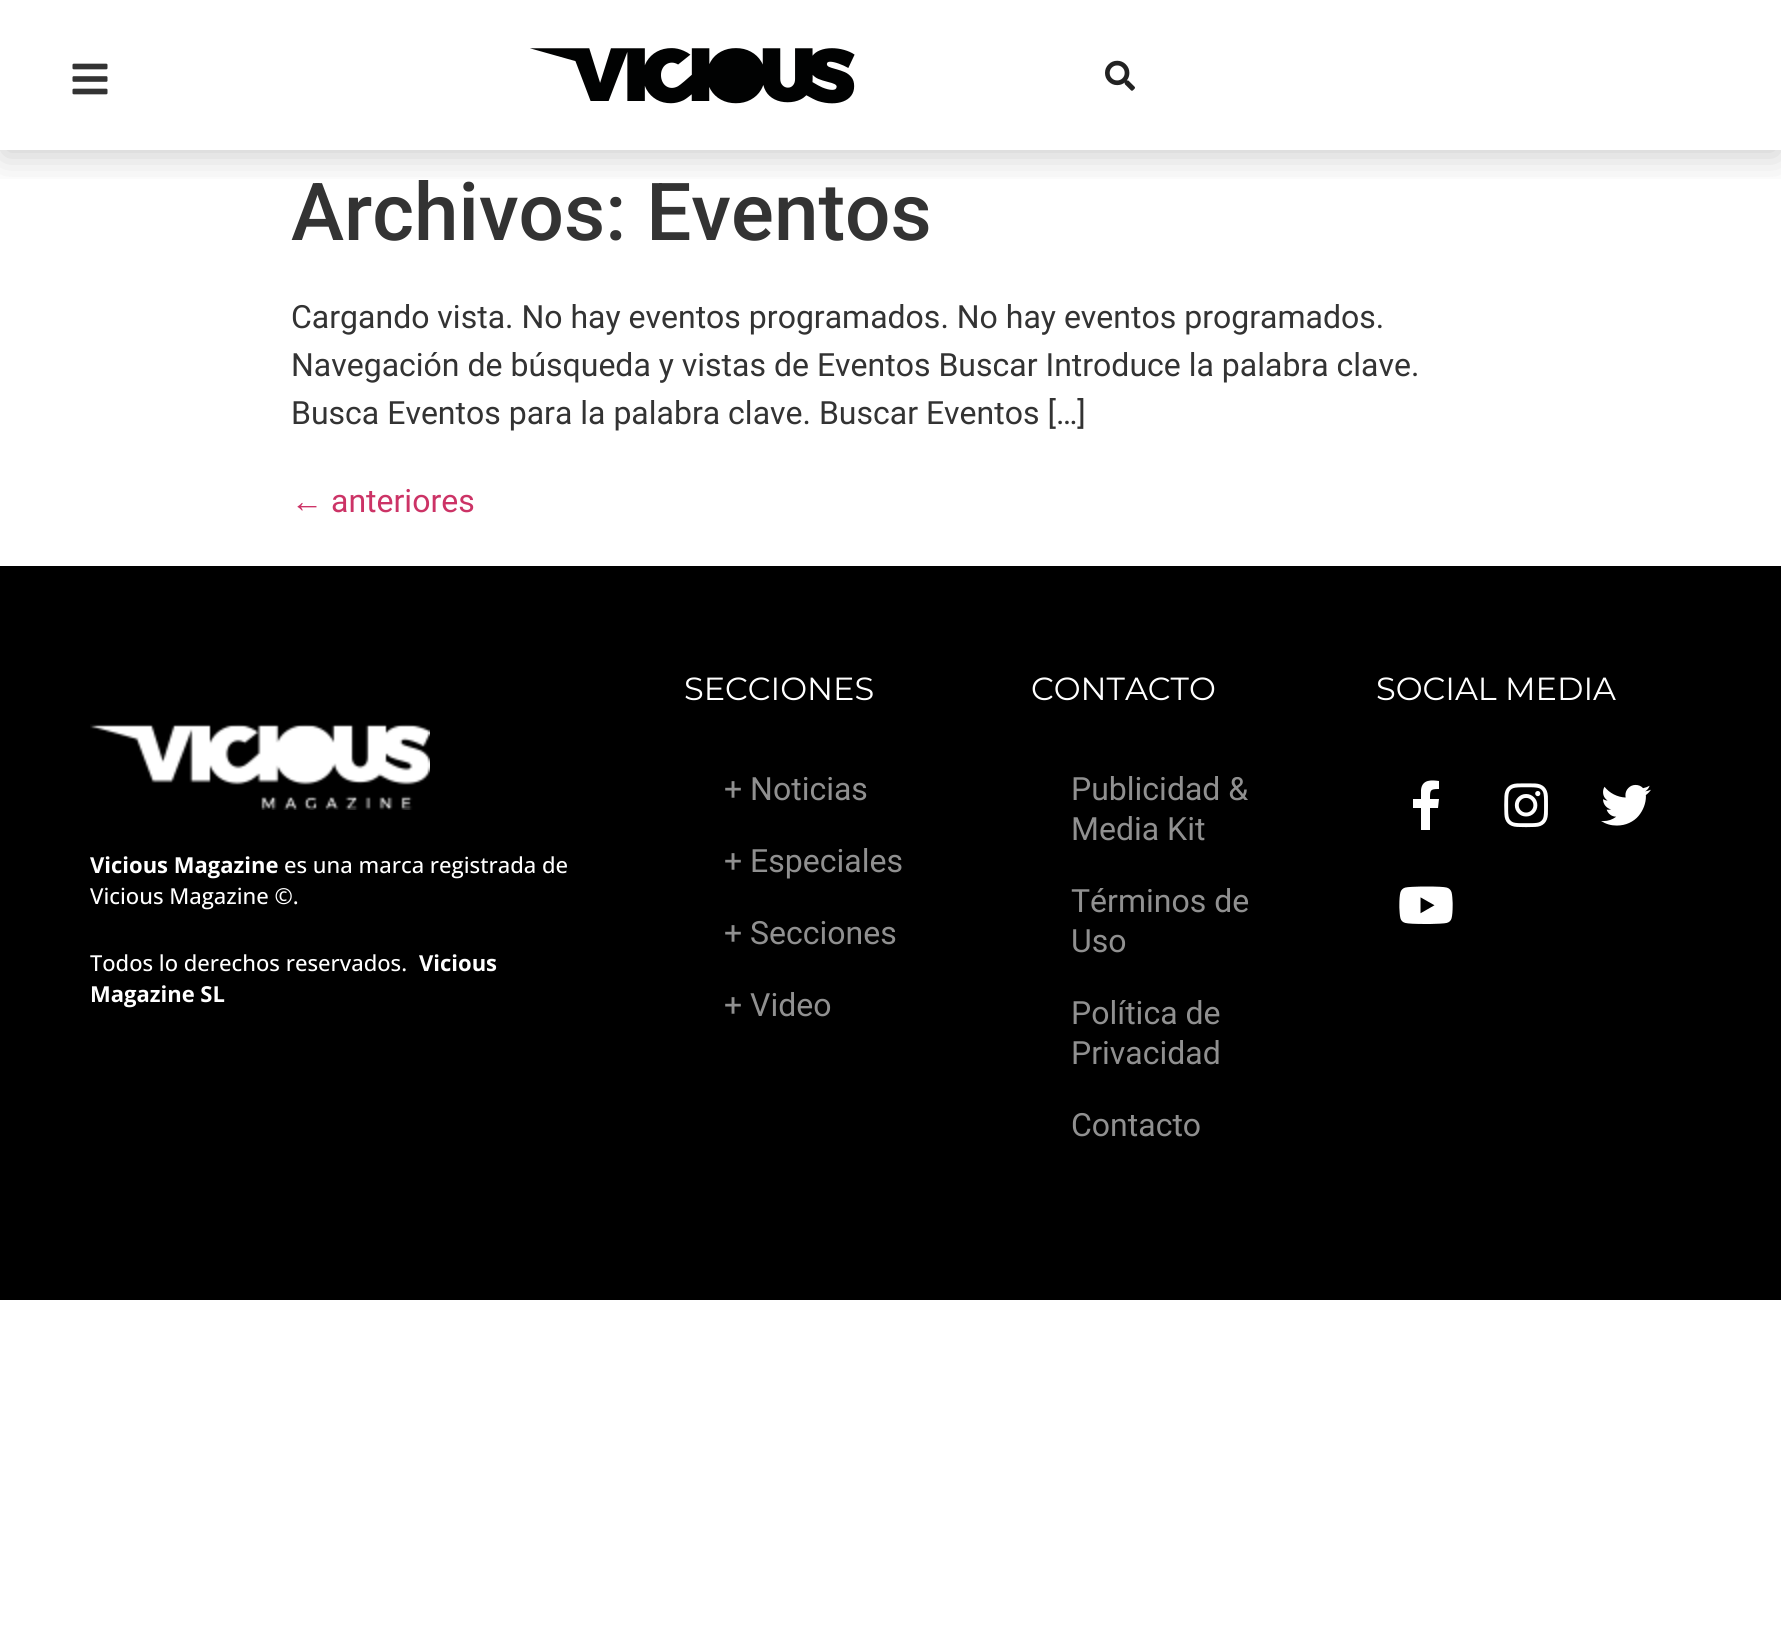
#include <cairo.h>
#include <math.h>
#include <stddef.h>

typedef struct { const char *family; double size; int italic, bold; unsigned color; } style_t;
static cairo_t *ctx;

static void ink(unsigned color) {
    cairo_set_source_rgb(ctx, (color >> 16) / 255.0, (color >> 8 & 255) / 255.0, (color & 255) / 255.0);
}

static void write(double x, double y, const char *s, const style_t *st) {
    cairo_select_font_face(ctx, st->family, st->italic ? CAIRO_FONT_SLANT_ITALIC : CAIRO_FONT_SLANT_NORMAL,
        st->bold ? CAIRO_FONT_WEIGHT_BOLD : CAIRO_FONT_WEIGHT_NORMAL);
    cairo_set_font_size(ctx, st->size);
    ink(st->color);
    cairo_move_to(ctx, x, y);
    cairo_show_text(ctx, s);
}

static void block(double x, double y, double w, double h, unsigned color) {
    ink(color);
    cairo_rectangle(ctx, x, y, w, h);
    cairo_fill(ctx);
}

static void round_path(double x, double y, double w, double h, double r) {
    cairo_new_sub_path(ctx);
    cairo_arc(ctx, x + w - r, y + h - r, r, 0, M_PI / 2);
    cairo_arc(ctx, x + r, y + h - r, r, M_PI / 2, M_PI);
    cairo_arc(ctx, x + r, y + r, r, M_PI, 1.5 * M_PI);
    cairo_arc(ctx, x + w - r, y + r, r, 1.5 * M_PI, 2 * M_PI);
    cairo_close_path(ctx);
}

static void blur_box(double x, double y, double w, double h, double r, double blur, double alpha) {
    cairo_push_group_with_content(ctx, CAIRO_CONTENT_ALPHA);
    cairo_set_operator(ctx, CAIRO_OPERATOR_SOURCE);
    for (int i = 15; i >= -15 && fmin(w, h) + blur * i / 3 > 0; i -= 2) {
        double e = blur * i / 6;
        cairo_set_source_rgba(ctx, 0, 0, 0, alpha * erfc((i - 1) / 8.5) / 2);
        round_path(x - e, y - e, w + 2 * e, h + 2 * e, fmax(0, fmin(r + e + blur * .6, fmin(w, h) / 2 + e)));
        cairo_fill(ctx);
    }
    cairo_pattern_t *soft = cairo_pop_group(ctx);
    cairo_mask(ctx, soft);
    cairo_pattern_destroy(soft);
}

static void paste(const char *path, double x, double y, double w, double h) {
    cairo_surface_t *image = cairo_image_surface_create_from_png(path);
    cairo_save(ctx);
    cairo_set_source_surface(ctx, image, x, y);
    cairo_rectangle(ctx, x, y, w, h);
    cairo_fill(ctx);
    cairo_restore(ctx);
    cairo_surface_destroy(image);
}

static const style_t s1 = {"Roboto Medium", 80, 0, 0, 0x333333};
static const style_t s2 = {"Roboto", 32, 0, 0, 0x333333};
static const style_t s3 = {"Liberation Sans", 32, 0, 0, 0xcc3366};
static const style_t s4 = {"Roboto", 32, 0, 0, 0xcc3366};
static const style_t s5 = {"Montserrat", 32, 0, 0, 0xffffff};
static const style_t s6 = {"Roboto", 32, 0, 0, 0x909090};
static const style_t s7 = {"Open Sans", 22, 0, 1, 0xffffff};
static const style_t s8 = {"Open Sans Medium", 22, 0, 0, 0xffffff};

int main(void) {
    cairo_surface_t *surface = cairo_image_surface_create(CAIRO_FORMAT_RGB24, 1781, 1636);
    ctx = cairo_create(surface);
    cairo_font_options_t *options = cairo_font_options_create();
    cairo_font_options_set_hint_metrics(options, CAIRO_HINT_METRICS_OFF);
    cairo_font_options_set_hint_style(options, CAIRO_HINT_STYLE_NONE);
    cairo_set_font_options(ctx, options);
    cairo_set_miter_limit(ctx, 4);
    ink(0xffffff);
    cairo_paint(ctx);
    cairo_save(ctx);
    cairo_rectangle(ctx, 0, 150, 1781, 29);
    cairo_clip(ctx);
    ink(0x000000);
    blur_box(2, 10, 1778, 146, 0, 18, 0.2);
    cairo_restore(ctx);
    paste("pic1.png", 72, 63, 36, 32);
    paste("pic2.png", 530, 48, 325, 56);
    paste("pic3.png", 1105, 60, 30, 31);
    write(291, 240, "Archivos: Eventos", &s1);
    write(291, 328, "Cargando vista. No hay eventos programados. No hay eventos programados.", &s2);
    write(291, 376, "Navegación de búsqueda y vistas de Eventos Buscar Introduce la palabra clave.", &s2);
    write(291, 424, "Busca Eventos para la palabra clave. Buscar Eventos […]", &s2);
    write(291, 512, "←", &s3);
    write(331, 512, "anteriores", &s4);
    block(0, 566, 1781, 734, 0x000000);
    write(684, 700, "SECCIONES", &s5);
    write(724, 800, "+ Noticias", &s6);
    write(724, 872, "+ Especiales", &s6);
    write(724, 944, "+ Secciones", &s6);
    write(724, 1016, "+ Video", &s6);
    write(1031, 700, "CONTACTO", &s5);
    write(1071, 800, "Publicidad &", &s6);
    write(1071, 840, "Media Kit", &s6);
    write(1071, 912, "Términos de", &s6);
    write(1071, 952, "Uso", &s6);
    write(1071, 1024, "Política de", &s6);
    write(1071, 1064, "Privacidad", &s6);
    write(1071, 1136, "Contacto", &s6);
    write(1376, 700, "SOCIAL MEDIA", &s5);
    cairo_new_path(ctx);
    cairo_move_to(ctx, 1438, 808);
    cairo_line_to(ctx, 1430, 808);
    cairo_line_to(ctx, 1430, 830);
    cairo_line_to(ctx, 1421, 830);
    cairo_line_to(ctx, 1421, 808);
    cairo_line_to(ctx, 1413, 808);
    cairo_line_to(ctx, 1413, 799);
    cairo_line_to(ctx, 1421, 799);
    cairo_line_to(ctx, 1421, 790);
    cairo_curve_to(ctx, 1422, 779, 1432, 780, 1439, 781);
    cairo_line_to(ctx, 1439, 789);
    cairo_curve_to(ctx, 1430, 789, 1430, 790, 1430, 799);
    cairo_line_to(ctx, 1439, 799);
    cairo_close_path(ctx);
    cairo_fill(ctx);
    paste("pic4.png", 1504, 783, 44, 45);
    paste("pic5.png", 1601, 784, 50, 42);
    paste("pic6.png", 1399, 886, 54, 38);
    paste("pic7.png", 90, 724, 340, 86);
    write(90, 873, "Vicious Magazine", &s7);
    write(284, 873, "es una marca registrada de", &s8);
    write(90, 904, "Vicious Magazine ©.", &s8);
    write(90, 971, "Todos lo derechos reservados.", &s8);
    write(419, 971, "Vicious", &s7);
    write(90, 1002, "Magazine SL", &s7);
    cairo_surface_write_to_png(surface, "screenshot.png");
    cairo_font_options_destroy(options);
    cairo_destroy(ctx);
    cairo_surface_destroy(surface);
    return 0;
}
